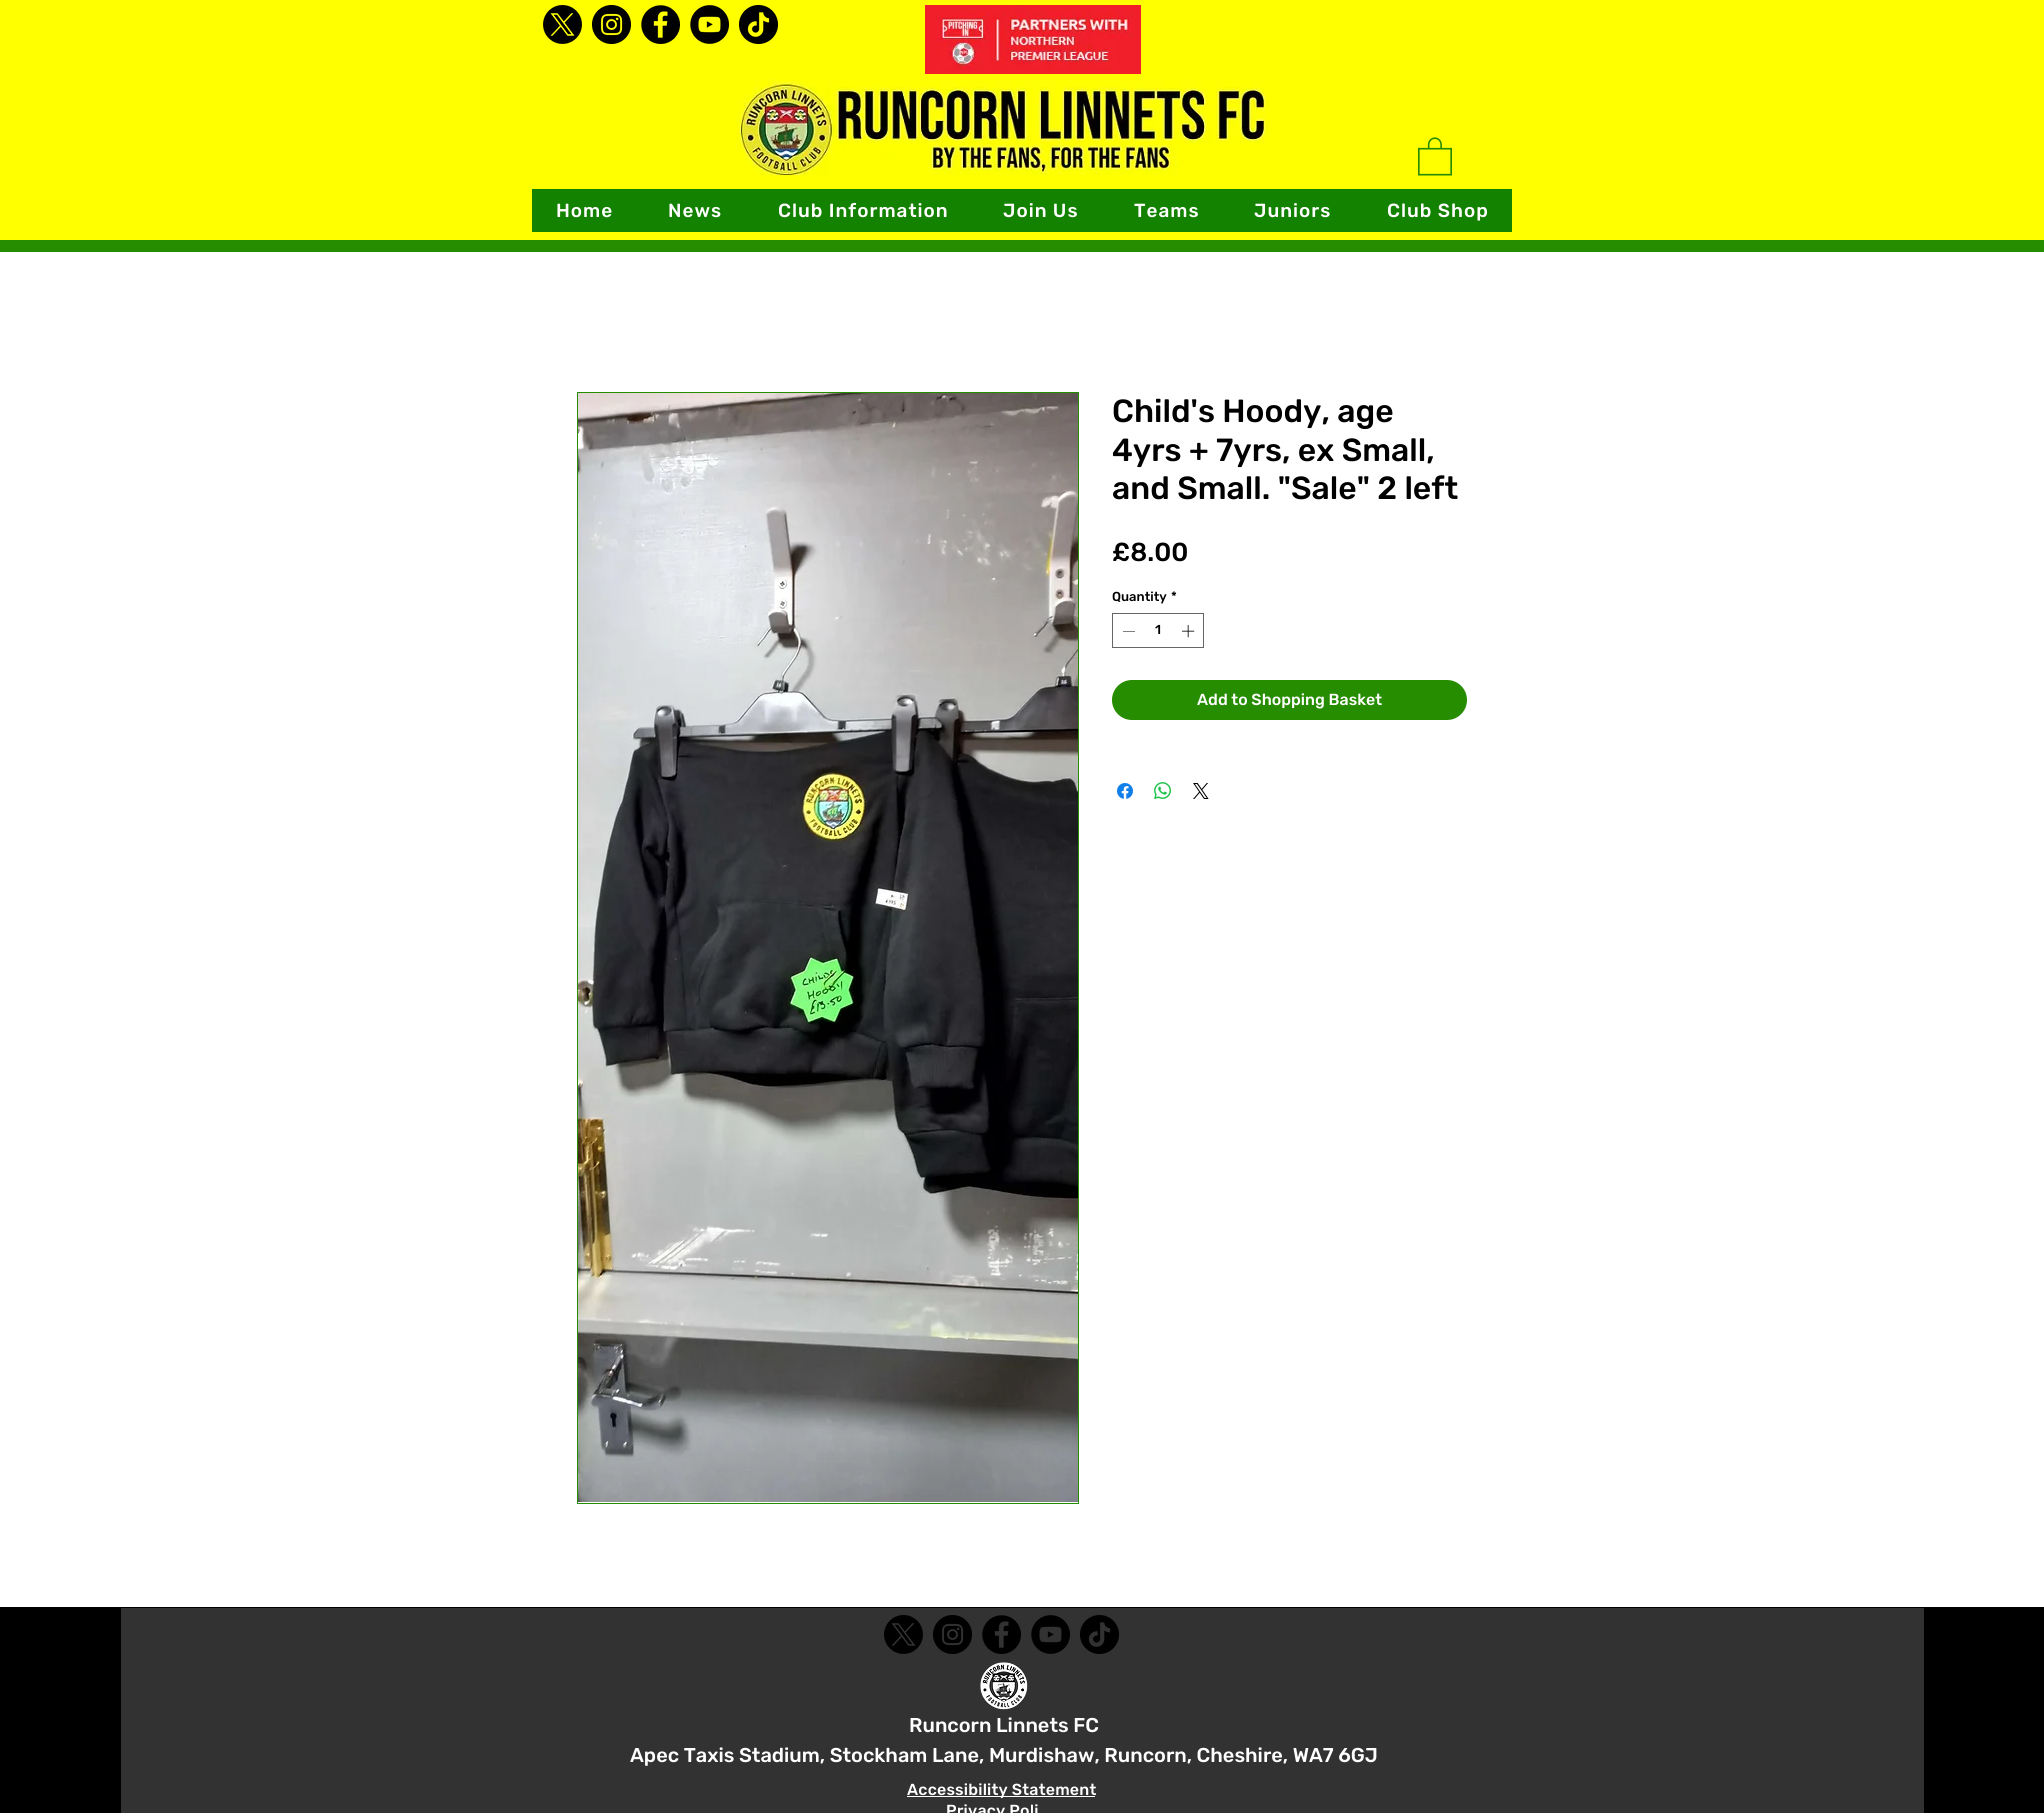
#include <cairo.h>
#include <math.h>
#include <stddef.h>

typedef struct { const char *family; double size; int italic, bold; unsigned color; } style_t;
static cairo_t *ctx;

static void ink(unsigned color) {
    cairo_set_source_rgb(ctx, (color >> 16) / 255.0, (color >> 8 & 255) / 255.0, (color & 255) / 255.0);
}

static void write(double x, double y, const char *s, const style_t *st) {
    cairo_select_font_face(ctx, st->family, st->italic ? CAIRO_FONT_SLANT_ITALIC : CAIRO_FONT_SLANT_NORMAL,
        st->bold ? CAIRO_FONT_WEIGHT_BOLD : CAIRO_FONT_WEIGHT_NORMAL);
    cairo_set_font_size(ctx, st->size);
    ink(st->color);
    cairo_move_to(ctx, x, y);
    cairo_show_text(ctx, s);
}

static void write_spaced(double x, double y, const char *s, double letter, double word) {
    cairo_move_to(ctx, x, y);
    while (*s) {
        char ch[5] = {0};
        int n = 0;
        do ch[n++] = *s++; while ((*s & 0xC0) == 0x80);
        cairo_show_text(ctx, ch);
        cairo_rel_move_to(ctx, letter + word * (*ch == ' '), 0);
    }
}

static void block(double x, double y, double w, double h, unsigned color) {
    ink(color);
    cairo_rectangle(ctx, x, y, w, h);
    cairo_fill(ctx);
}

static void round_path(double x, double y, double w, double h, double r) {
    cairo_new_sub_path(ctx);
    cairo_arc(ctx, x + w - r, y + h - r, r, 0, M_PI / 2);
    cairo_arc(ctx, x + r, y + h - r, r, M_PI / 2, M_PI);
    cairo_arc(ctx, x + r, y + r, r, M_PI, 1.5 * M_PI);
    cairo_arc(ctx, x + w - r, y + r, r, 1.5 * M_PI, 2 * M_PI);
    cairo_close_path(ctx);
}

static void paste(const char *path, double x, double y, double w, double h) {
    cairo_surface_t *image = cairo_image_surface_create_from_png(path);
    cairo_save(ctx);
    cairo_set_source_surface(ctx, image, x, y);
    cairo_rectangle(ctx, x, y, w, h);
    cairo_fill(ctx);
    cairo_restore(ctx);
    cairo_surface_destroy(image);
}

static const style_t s1 = {"Rubik Medium", 32, 0, 0, 0x000000};
static const style_t s2 = {"Rubik Medium", 26, 0, 0, 0x000000};
static const style_t s3 = {"Rubik Medium", 13, 0, 0, 0x000000};
static const style_t s4 = {"Rubik Medium", 16, 0, 0, 0xffffff};
static const style_t s5 = {"Rubik Medium", 20, 0, 0, 0xffffff};

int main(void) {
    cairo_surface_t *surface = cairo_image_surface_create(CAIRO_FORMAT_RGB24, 2044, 1813);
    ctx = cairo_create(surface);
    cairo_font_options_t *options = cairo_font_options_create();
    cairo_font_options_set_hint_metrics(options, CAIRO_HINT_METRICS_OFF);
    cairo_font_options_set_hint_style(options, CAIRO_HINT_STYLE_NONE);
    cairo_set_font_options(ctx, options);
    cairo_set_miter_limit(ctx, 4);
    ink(0xffffff);
    cairo_paint(ctx);
    block(0, 0, 2044, 240, 0xffff00);
    block(0, 240, 2044, 12, 0x268c00);
    paste("pic1.png", 543, 5, 39, 39);
    paste("pic2.png", 592, 5, 39, 39);
    paste("pic3.png", 641, 5, 39, 39);
    paste("pic4.png", 690, 5, 39, 39);
    paste("pic5.png", 739, 5, 39, 39);
    paste("pic6.png", 925, 5, 216, 69);
    paste("pic7.png", 736, 79, 533, 96);
    paste("pic8.png", 1418, 137, 34, 39);
    block(532, 189, 980, 43, 0x138200);
    cairo_select_font_face(ctx, "Rubik Medium", CAIRO_FONT_SLANT_NORMAL, CAIRO_FONT_WEIGHT_NORMAL);
    cairo_set_font_size(ctx, 19);
    ink(0xffffff);
    write_spaced(556, 217, "Home", 1, 0);
    write_spaced(668, 217, "News", 1, 0);
    write_spaced(778, 217, "Club Information", 1, 0);
    write_spaced(1003, 217, "Join Us", 1, 0);
    write_spaced(1134, 217, "Teams", 1, 0);
    write_spaced(1254, 217, "Juniors", 1, 0);
    write_spaced(1387, 217, "Club Shop", 1, 0);
    cairo_rectangle(ctx, 577.5, 392.5, 501, 1111);
    ink(0x268c00);
    cairo_set_line_width(ctx, 1);
    cairo_stroke(ctx);
    paste("pic9.png", 578, 393, 500, 1109);
    write(1112, 422, "Child's Hoody, age", &s1);
    write(1112, 461, "4yrs + 7yrs, ex Small,", &s1);
    write(1112, 499, "and Small. \"Sale\" 2 left", &s1);
    write(1112, 561, "£8.00", &s2);
    write(1112, 601, "Quantity", &s3);
    write(1171, 601, "*", &s3);
    cairo_rectangle(ctx, 1112.5, 613.5, 91, 34);
    ink(0x666666);
    cairo_stroke(ctx);
    ink(0x000000);
    cairo_set_fill_rule(ctx, CAIRO_FILL_RULE_EVEN_ODD);
    cairo_new_path(ctx);
    cairo_move_to(ctx, 1135, 631);
    cairo_line_to(ctx, 1135, 631.5);
    cairo_line_to(ctx, 1123, 631.5);
    cairo_line_to(ctx, 1123, 631);
    cairo_close_path(ctx);
    cairo_fill(ctx);
    write(1155, 634, "1", &s3);
    paste("pic10.png", 1182, 625, 13, 13);
    ink(0x268c00);
    round_path(1112, 680, 355, 40, 20);
    cairo_fill(ctx);
    write(1197, 705, "Add to Shopping Basket", &s4);
    paste("pic11.png", 1117, 783, 16, 16);
    paste("pic12.png", 1154, 782, 17, 17);
    paste("pic13.png", 1193, 783, 16, 16);
    block(0, 1607, 2044, 206, 0x000000);
    block(121, 1608, 1803, 205, 0x323232);
    paste("pic14.png", 884, 1615, 39, 39);
    paste("pic15.png", 933, 1615, 39, 39);
    paste("pic16.png", 982, 1615, 39, 39);
    paste("pic17.png", 1031, 1615, 39, 39);
    paste("pic18.png", 1080, 1615, 39, 39);
    paste("pic19.png", 980, 1662, 48, 48);
    write(909, 1732, "Runcorn Linnets FC", &s5);
    write(630, 1762, "Apec Taxis Stadium, Stockham Lane, Murdishaw, Runcorn, Cheshire, WA7 6GJ", &s5);
    block(907, 1796, 188, 1, 0xffffff);
    cairo_set_font_size(ctx, 16);
    write_spaced(907, 1795, "Accessibility Statement", 0.2, 0);
    write_spaced(946, 1816, "Privacy Poli", 0.2, 0);
    cairo_surface_write_to_png(surface, "screenshot.png");
    cairo_font_options_destroy(options);
    cairo_destroy(ctx);
    cairo_surface_destroy(surface);
    return 0;
}
